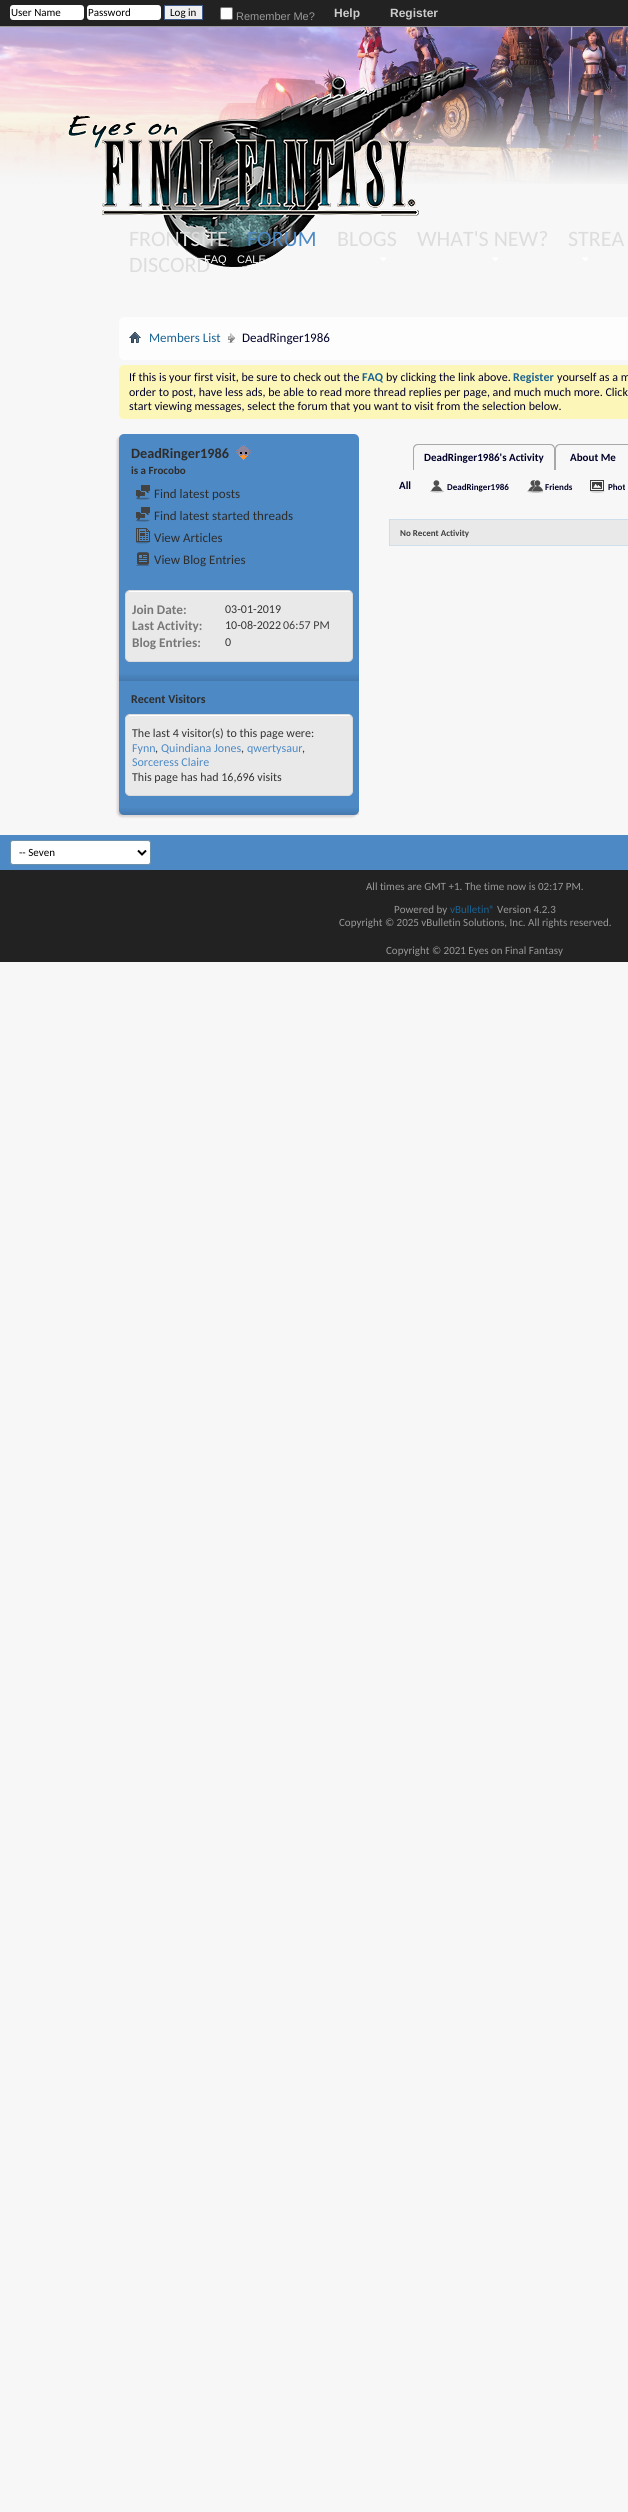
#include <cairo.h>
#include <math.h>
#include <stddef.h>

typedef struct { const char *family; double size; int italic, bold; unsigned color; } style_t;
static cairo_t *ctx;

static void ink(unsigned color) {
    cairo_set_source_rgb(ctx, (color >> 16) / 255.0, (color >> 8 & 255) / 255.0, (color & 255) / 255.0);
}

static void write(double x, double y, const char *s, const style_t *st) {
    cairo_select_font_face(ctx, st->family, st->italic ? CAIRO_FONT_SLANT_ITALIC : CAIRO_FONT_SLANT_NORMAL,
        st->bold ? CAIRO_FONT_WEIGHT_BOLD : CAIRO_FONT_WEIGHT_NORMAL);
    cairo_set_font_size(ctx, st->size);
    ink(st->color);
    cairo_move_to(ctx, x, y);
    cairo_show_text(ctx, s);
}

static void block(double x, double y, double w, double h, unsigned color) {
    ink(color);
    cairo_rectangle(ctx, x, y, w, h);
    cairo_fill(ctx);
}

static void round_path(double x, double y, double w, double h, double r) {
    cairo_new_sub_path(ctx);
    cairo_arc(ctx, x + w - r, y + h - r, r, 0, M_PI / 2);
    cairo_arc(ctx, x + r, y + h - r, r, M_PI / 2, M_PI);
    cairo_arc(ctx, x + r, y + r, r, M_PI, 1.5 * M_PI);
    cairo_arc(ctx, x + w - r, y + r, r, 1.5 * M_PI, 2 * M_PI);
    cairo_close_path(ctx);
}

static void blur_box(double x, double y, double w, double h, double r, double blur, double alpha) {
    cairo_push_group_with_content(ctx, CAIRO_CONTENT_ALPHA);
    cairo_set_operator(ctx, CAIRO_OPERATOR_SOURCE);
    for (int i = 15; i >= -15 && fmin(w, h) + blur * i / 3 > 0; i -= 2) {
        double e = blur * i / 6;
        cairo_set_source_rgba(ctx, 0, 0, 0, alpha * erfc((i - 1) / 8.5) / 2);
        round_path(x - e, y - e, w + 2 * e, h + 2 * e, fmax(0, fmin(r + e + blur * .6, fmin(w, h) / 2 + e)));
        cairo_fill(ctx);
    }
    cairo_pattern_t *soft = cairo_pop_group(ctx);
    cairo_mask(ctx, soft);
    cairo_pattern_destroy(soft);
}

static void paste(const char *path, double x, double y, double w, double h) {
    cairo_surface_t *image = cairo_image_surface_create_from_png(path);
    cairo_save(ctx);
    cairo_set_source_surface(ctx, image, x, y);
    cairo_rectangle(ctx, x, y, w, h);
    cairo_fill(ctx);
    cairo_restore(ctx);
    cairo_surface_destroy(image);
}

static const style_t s1 = {"Carlito", 11, 0, 0, 0x000000};
static const style_t s2 = {"Liberation Sans", 11, 0, 0, 0x999999};
static const style_t s3 = {"Liberation Sans", 12, 0, 1, 0xcccccc};
static const style_t s4 = {"Carlito", 22, 0, 0, 0xdddddd};
static const style_t s5 = {"Carlito", 22, 0, 0, 0x4d89c5};
static const style_t s6 = {"Liberation Sans", 11, 0, 0, 0xffffff};
static const style_t s7 = {"Carlito", 13, 0, 0, 0x1a6292};
static const style_t s8 = {"Carlito", 13, 0, 0, 0x000029};
static const style_t s9 = {"Carlito", 12, 0, 0, 0x000029};
static const style_t s10 = {"Carlito", 12, 0, 1, 0x1a6292};
static const style_t s11 = {"Carlito", 14.25, 0, 1, 0x2d2d2d};
static const style_t s12 = {"Carlito", 11, 0, 1, 0x2d2d2d};
static const style_t s13 = {"Carlito", 13, 0, 0, 0x2d2d2d};
static const style_t s14 = {"Carlito", 13.25, 0, 1, 0x777777};
static const style_t s15 = {"Carlito", 12, 0, 0, 0x333333};
static const style_t s16 = {"Carlito", 12, 0, 0, 0x3e3e3e};
static const style_t s17 = {"Carlito", 12, 0, 1, 0x2d2d2d};
static const style_t s18 = {"Carlito", 12, 0, 0, 0x4d89c5};
static const style_t s19 = {"Carlito", 11, 0, 1, 0x000029};
static const style_t s20 = {"Carlito", 9, 0, 1, 0x000029};
static const style_t s21 = {"Carlito", 9, 0, 1, 0x3e3e3e};
static const style_t s22 = {"Carlito", 11, 0, 0, 0x999999};
static const style_t s23 = {"Carlito", 11, 0, 0, 0x1a6292};

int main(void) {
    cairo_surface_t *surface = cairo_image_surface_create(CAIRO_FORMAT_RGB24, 628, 2512);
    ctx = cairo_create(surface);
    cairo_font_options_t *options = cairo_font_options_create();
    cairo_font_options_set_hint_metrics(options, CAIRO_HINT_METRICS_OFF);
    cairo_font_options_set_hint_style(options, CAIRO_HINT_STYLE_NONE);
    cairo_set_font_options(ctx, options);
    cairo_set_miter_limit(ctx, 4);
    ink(0xf7f7f7);
    cairo_paint(ctx);
    paste("pic1.png", 0, 27, 628, 157);
    paste("pic2.png", 67, 66, 399, 201);
    block(0, 0, 628, 26, 0x222222);
    block(0, 26, 628, 1, 0x999999);
    ink(0xffffff);
    round_path(10, 5, 74, 15, 3);
    cairo_fill(ctx);
    write(11, 16, "User Name", &s1);
    ink(0xffffff);
    round_path(87, 5, 74, 15, 3);
    cairo_fill(ctx);
    write(88, 16, "Password", &s1);
    ink(0xefefef);
    cairo_rectangle(ctx, 164.5, 5.5, 38, 14);
    cairo_fill_preserve(ctx);
    ink(0x415d8d);
    cairo_set_line_width(ctx, 1);
    cairo_stroke(ctx);
    write(170, 16, "Log in", &s1);
    ink(0xffffff);
    round_path(220.5, 7.5, 12, 12, 1.5);
    cairo_fill_preserve(ctx);
    ink(0x767676);
    cairo_stroke(ctx);
    write(236, 20, "Remember Me?", &s2);
    write(334, 17, "Help", &s3);
    write(390, 17, "Register", &s3);
    write(129, 246, "FRONTSITE", &s4);
    write(247, 246, "FORUM", &s5);
    write(337, 246, "BLOGS", &s4);
    write(417, 246, "WHAT'S NEW?", &s4);
    write(568, 246, "STREA", &s4);
    write(129, 272, "DISCORD", &s4);
    write(204, 263, "FAQ", &s6);
    write(237, 263, "CALE", &s6);
    paste("pic3.png", 380, 257, 6, 4);
    paste("pic3.png", 492, 257, 6, 4);
    paste("pic3.png", 582, 257, 6, 4);
    ink(0xfdfdfd);
    round_path(119, 317, 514, 43, 5);
    cairo_fill(ctx);
    paste("pic4.png", 129, 332, 12, 11);
    paste("pic5.png", 228, 333, 7, 10);
    write(149, 342, "Members List", &s7);
    write(242, 342, "DeadRinger1986", &s8);
    ink(0xfdf6b9);
    round_path(119, 365, 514, 54, 5);
    cairo_fill(ctx);
    write(129, 381, "If this is your first visit, be sure to check out the", &s9);
    write(362, 381, "FAQ", &s10);
    write(386, 381, "by clicking the link above.", &s9);
    write(513, 381, "Register", &s10);
    write(557, 381, "yourself as a m", &s9);
    write(129, 396, "order to post, have less ads, be able to read more thread replies per page, and much much more. Click", &s9);
    write(129, 410, "start viewing messages, select the forum that you want to visit from the selection below.", &s9);
    ink(0x320000);
    blur_box(117, 436, 240, 381, 5, 1, 0.15);
    ink(0x4d89c5);
    round_path(119, 434, 240, 381, 5);
    cairo_fill(ctx);
    write(131, 458, "DeadRinger1986", &s11);
    paste("pic6.png", 236, 445, 15, 15);
    write(131, 474, "is a Frocobo", &s12);
    paste("pic7.png", 135, 485, 15, 15);
    write(154, 498, "Find latest posts", &s13);
    paste("pic7.png", 135, 507, 15, 15);
    write(154, 520, "Find latest started threads", &s13);
    paste("pic8.png", 135, 528, 15, 16);
    write(154, 542, "View Articles", &s13);
    paste("pic9.png", 135, 552, 15, 14);
    write(154, 564, "View Blog Entries", &s13);
    ink(0xe9e9e9);
    round_path(125.5, 590.5, 227, 71, 4.5);
    cairo_fill_preserve(ctx);
    ink(0xdadada);
    cairo_stroke(ctx);
    block(129, 591, 221, 1, 0xffffff);
    write(132, 614, "Join Date:", &s14);
    write(225, 613, "03-01-2019", &s15);
    write(132, 630, "Last Activity:", &s14);
    write(225, 629, "10-08-2022", &s15);
    write(283, 629, "06:57 PM", &s16);
    write(132, 647, "Blog Entries:", &s14);
    write(225, 646, "0", &s15);
    paste("pic10.png", 119, 674, 240, 7);
    write(131, 703, "Recent Visitors", &s17);
    ink(0xe9e9e9);
    round_path(125.5, 714.5, 227, 81, 4.5);
    cairo_fill_preserve(ctx);
    ink(0xdadada);
    cairo_stroke(ctx);
    block(129, 715, 221, 1, 0xffffff);
    write(132, 737, "The last 4 visitor(s) to this page were:", &s15);
    write(132, 752, "Fynn", &s18);
    write(155, 752, ",", &s15);
    write(161, 752, "Quindiana Jones", &s18);
    write(241, 752, ",", &s15);
    write(247, 752, "qwertysaur", &s18);
    write(302, 752, ",", &s15);
    write(132, 766, "Sorceress Claire", &s18);
    write(132, 781, "This page has had 16,696 visits", &s15);
    paste("pic11.png", 119, 808, 240, 7);
    ink(0xa8a8a8);
    cairo_set_fill_rule(ctx, CAIRO_FILL_RULE_EVEN_ODD);
    cairo_new_path(ctx);
    cairo_move_to(ctx, 418, 444);
    cairo_line_to(ctx, 550, 444);
    cairo_curve_to(ctx, 553, 444, 555, 446, 555, 449);
    cairo_line_to(ctx, 555, 470);
    cairo_line_to(ctx, 413, 470);
    cairo_line_to(ctx, 413, 449);
    cairo_curve_to(ctx, 413, 446, 415, 444, 418, 444);
    cairo_close_path(ctx);
    cairo_move_to(ctx, 418, 445);
    cairo_line_to(ctx, 550, 445);
    cairo_curve_to(ctx, 552, 445, 554, 447, 554, 449);
    cairo_line_to(ctx, 554, 470);
    cairo_line_to(ctx, 414, 470);
    cairo_line_to(ctx, 414, 449);
    cairo_curve_to(ctx, 414, 447, 416, 445, 418, 445);
    cairo_close_path(ctx);
    cairo_fill(ctx);
    write(424, 461, "DeadRinger1986's Activity", &s19);
    ink(0xa8a8a8);
    cairo_new_path(ctx);
    cairo_move_to(ctx, 560, 444);
    cairo_line_to(ctx, 627, 444);
    cairo_curve_to(ctx, 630, 444, 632, 446, 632, 449);
    cairo_line_to(ctx, 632, 470);
    cairo_line_to(ctx, 555, 470);
    cairo_line_to(ctx, 555, 449);
    cairo_curve_to(ctx, 555, 446, 557, 444, 560, 444);
    cairo_close_path(ctx);
    cairo_move_to(ctx, 560, 445);
    cairo_line_to(ctx, 627, 445);
    cairo_curve_to(ctx, 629, 445, 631, 447, 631, 449);
    cairo_line_to(ctx, 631, 470);
    cairo_line_to(ctx, 556, 470);
    cairo_line_to(ctx, 556, 449);
    cairo_curve_to(ctx, 556, 447, 558, 445, 560, 445);
    cairo_close_path(ctx);
    cairo_fill(ctx);
    write(570, 461, "About Me", &s19);
    write(399, 489, "All", &s19);
    paste("pic12.png", 430, 480, 14, 13);
    write(447, 490, "DeadRinger1986", &s20);
    paste("pic13.png", 527, 480, 16, 13);
    write(545, 490, "Friends", &s20);
    paste("pic14.png", 590, 480, 15, 13);
    write(608, 490, "Phot", &s20);
    ink(0xe9e9e9);
    cairo_rectangle(ctx, 389.5, 519.5, 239, 26);
    cairo_fill_preserve(ctx);
    ink(0xcedfeb);
    cairo_stroke(ctx);
    write(400, 536, "No Recent Activity", &s21);
    block(0, 835, 628, 35, 0x4d89c5);
    ink(0xffffff);
    round_path(10.5, 840.5, 140, 24, 2.5);
    cairo_fill_preserve(ctx);
    ink(0x6b91ab);
    cairo_stroke(ctx);
    cairo_new_path(ctx);
    cairo_move_to(ctx, 138, 850.5);
    cairo_line_to(ctx, 142, 854.5);
    cairo_line_to(ctx, 146, 850.5);
    ink(0x000000);
    cairo_set_line_width(ctx, 2);
    cairo_stroke(ctx);
    write(19, 856, "-- Seven", &s1);
    block(0, 870, 628, 92, 0x222222);
    write(366, 890, "All times are GMT +1. The time now is 02:17 PM.", &s22);
    write(394, 913, "Powered by", &s22);
    write(450, 913, "vBulletin®", &s23);
    write(497, 913, "Version 4.2.3", &s22);
    write(339, 926, "Copyright © 2025 vBulletin Solutions, Inc. All rights reserved.", &s22);
    write(386, 954, "Copyright © 2021 Eyes on Final Fantasy", &s22);
    cairo_surface_write_to_png(surface, "screenshot.png");
    cairo_font_options_destroy(options);
    cairo_destroy(ctx);
    cairo_surface_destroy(surface);
    return 0;
}
